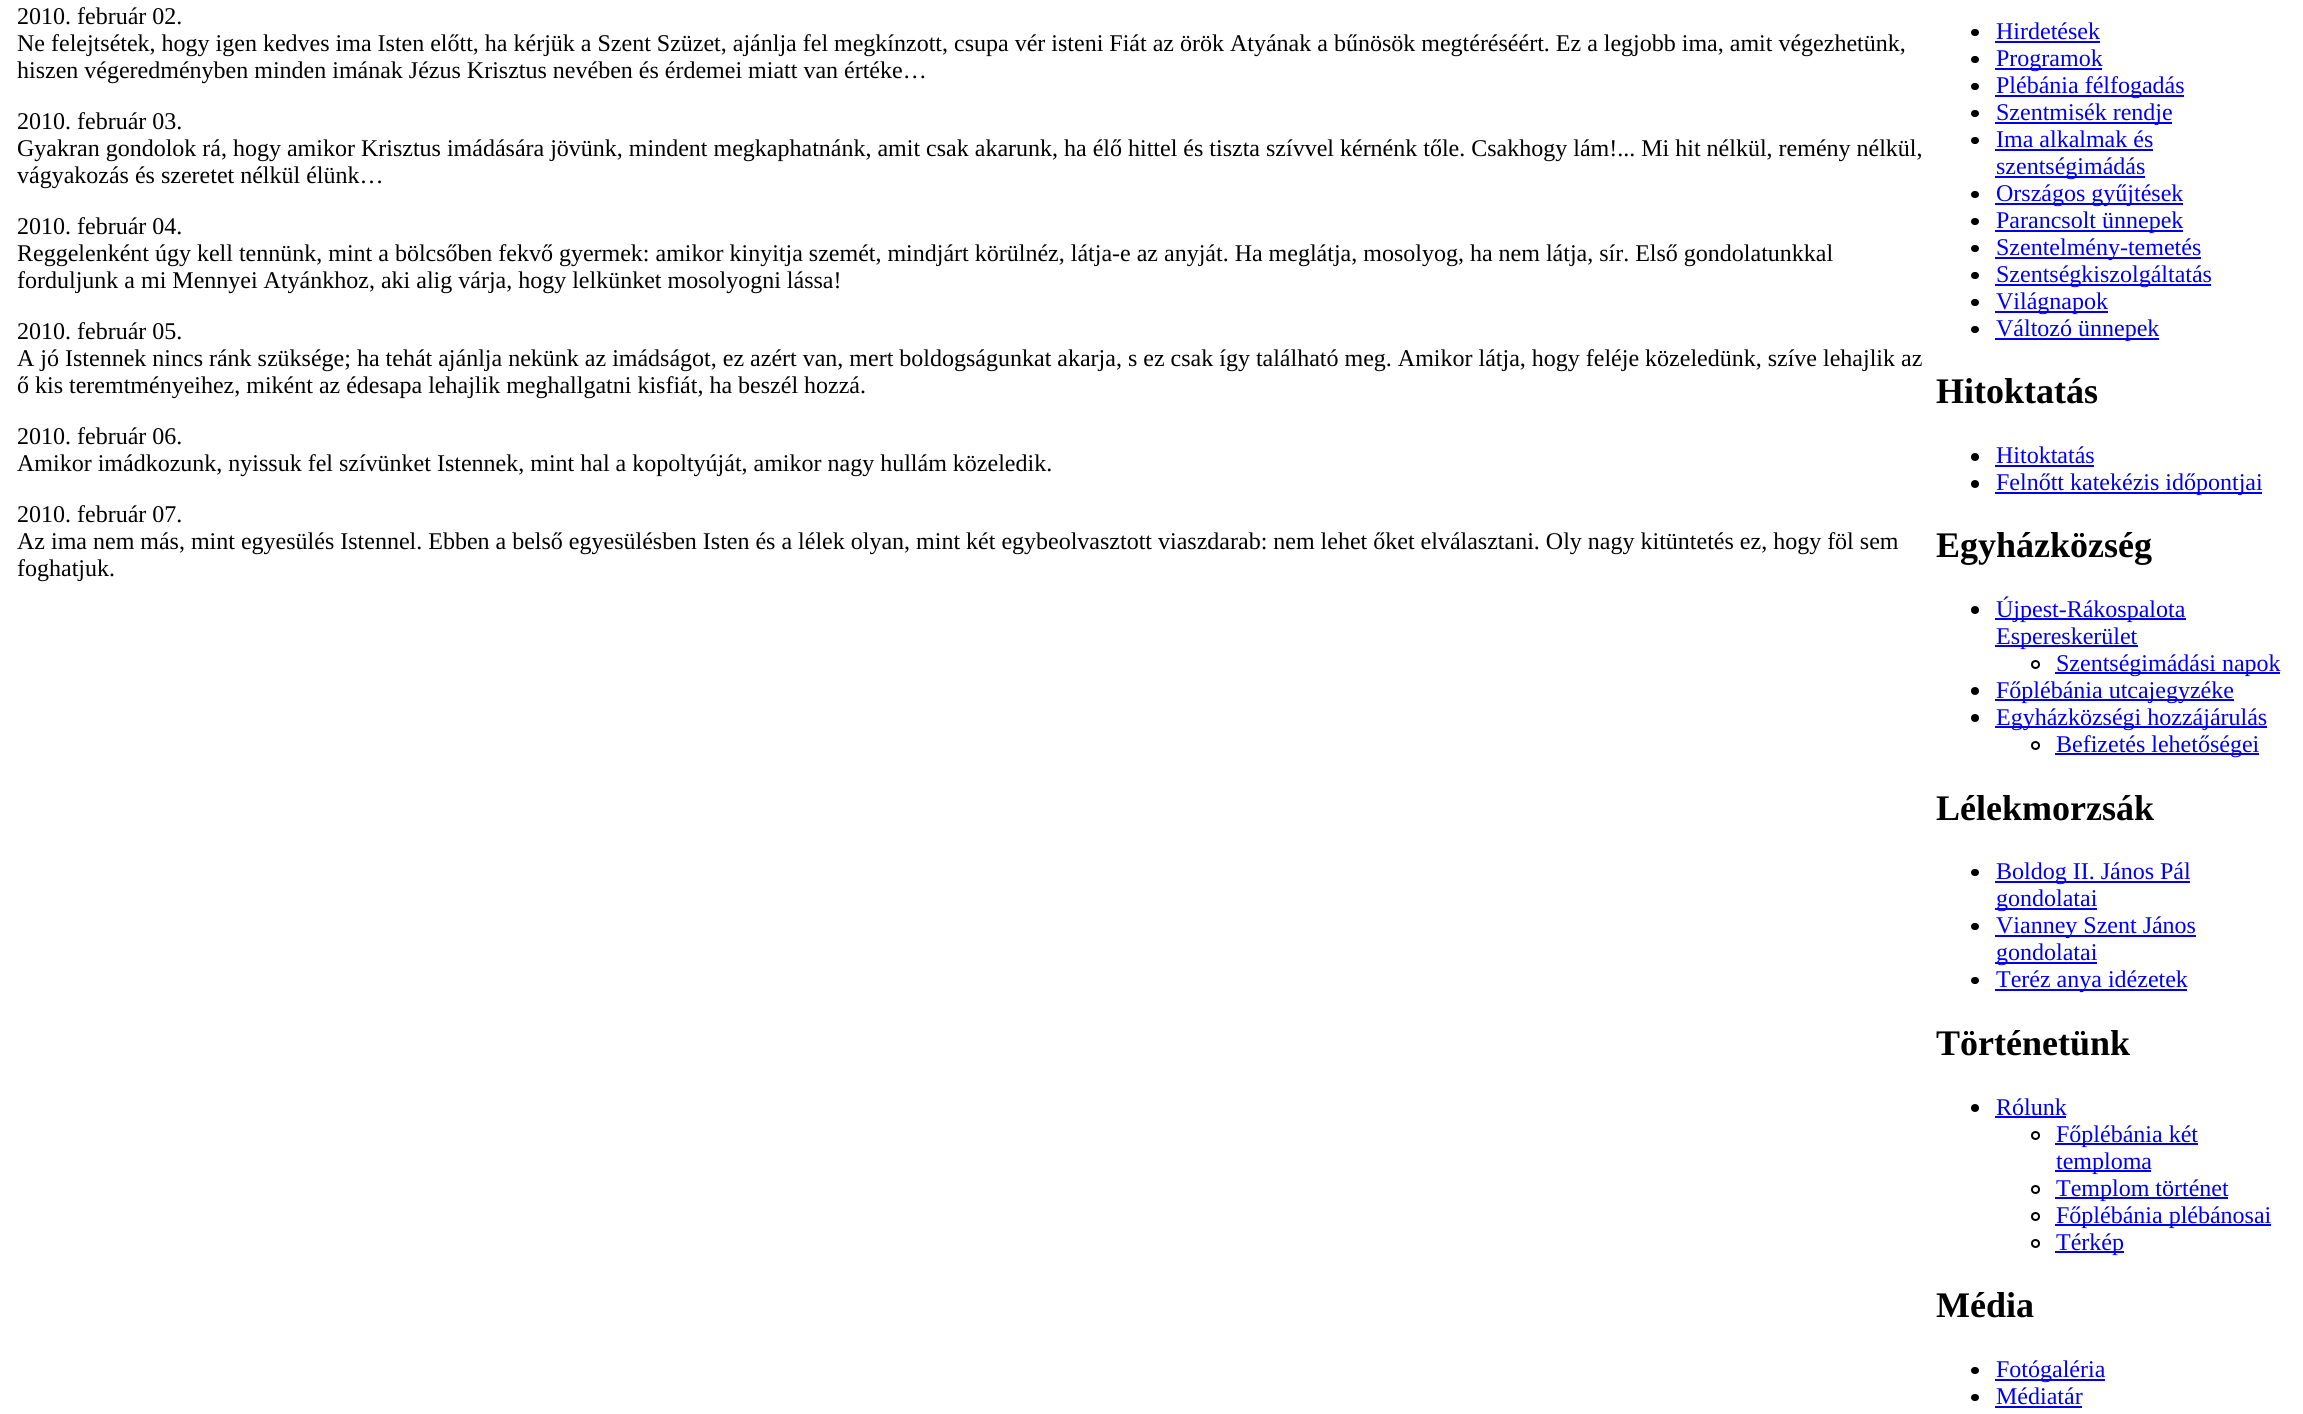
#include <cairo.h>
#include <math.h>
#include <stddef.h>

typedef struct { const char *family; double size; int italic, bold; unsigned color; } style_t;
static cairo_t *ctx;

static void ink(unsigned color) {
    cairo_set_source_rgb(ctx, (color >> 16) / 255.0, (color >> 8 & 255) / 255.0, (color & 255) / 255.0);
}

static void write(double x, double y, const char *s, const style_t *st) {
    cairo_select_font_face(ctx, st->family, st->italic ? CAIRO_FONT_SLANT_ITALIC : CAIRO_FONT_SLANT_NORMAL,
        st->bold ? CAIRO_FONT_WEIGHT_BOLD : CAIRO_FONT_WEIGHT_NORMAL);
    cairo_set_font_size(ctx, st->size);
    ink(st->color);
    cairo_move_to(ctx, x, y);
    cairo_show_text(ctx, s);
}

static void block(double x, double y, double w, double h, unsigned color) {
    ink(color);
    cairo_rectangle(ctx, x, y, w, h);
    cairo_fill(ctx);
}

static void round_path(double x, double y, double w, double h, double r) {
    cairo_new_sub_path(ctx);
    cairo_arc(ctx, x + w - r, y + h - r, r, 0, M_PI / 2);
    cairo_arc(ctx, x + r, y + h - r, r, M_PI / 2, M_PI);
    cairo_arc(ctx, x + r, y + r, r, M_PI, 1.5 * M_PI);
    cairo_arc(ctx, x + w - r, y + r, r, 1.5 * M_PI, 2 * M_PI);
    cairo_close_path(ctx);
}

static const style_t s1 = {"Liberation Serif", 24, 0, 0, 0x000000};
static const style_t s2 = {"Liberation Serif", 24, 0, 0, 0x0000ee};
static const style_t s3 = {"Liberation Serif", 36, 0, 1, 0x000000};

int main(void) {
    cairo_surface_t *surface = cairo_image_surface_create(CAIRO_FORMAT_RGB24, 2303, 1414);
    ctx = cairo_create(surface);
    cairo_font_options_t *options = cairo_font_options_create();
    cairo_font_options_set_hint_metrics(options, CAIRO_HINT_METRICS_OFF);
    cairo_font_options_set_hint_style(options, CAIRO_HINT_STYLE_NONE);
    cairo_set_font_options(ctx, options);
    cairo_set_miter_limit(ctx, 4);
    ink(0xffffff);
    cairo_paint(ctx);
    write(17, 24, "2010. február 02.", &s1);
    write(17, 51, "Ne felejtsétek, hogy igen kedves ima Isten előtt, ha kérjük a Szent Szüzet, ajánlja fel megkínzott, csupa vér isteni Fiát az örök Atyának a bűnösök megtéréséért. Ez a legjobb ima, amit végezhetünk,", &s1);
    write(17, 78, "hiszen végeredményben minden imának Jézus Krisztus nevében és érdemei miatt van értéke…", &s1);
    write(17, 129, "2010. február 03.", &s1);
    write(17, 156, "Gyakran gondolok rá, hogy amikor Krisztus imádására jövünk, mindent megkaphatnánk, amit csak akarunk, ha élő hittel és tiszta szívvel kérnénk tőle. Csakhogy lám!... Mi hit nélkül, remény nélkül,", &s1);
    write(17, 183, "vágyakozás és szeretet nélkül élünk…", &s1);
    write(17, 234, "2010. február 04.", &s1);
    write(17, 261, "Reggelenként úgy kell tennünk, mint a bölcsőben fekvő gyermek: amikor kinyitja szemét, mindjárt körülnéz, látja-e az anyját. Ha meglátja, mosolyog, ha nem látja, sír. Első gondolatunkkal", &s1);
    write(17, 288, "forduljunk a mi Mennyei Atyánkhoz, aki alig várja, hogy lelkünket mosolyogni lássa!", &s1);
    write(17, 339, "2010. február 05.", &s1);
    write(17, 366, "A jó Istennek nincs ránk szüksége; ha tehát ajánlja nekünk az imádságot, ez azért van, mert boldogságunkat akarja, s ez csak így található meg. Amikor látja, hogy feléje közeledünk, szíve lehajlik az", &s1);
    write(17, 393, "ő kis teremtményeihez, miként az édesapa lehajlik meghallgatni kisfiát, ha beszél hozzá.", &s1);
    write(17, 444, "2010. február 06.", &s1);
    write(17, 471, "Amikor imádkozunk, nyissuk fel szívünket Istennek, mint hal a kopoltyúját, amikor nagy hullám közeledik.", &s1);
    write(17, 522, "2010. február 07.", &s1);
    write(17, 549, "Az ima nem más, mint egyesülés Istennel. Ebben a belső egyesülésben Isten és a lélek olyan, mint két egybeolvasztott viaszdarab: nem lehet őket elválasztani. Oly nagy kitüntetés ez, hogy föl sem", &s1);
    write(17, 576, "foghatjuk.", &s1);
    round_path(1971, 29, 8, 7, 3.5);
    cairo_fill(ctx);
    write(1996, 39, "Hirdetések", &s2);
    block(1995, 41, 105, 2, 0x0000ee);
    ink(0x000000);
    round_path(1971, 56, 8, 7, 3.5);
    cairo_fill(ctx);
    block(1995, 68, 107, 2, 0x0000ee);
    write(1996, 66, "Programok", &s2);
    ink(0x000000);
    round_path(1971, 83, 8, 7, 3.5);
    cairo_fill(ctx);
    block(1995, 95, 189, 2, 0x0000ee);
    write(1996, 93, "Plébánia félfogadás", &s2);
    ink(0x000000);
    round_path(1971, 110, 8, 7, 3.5);
    cairo_fill(ctx);
    block(1995, 122, 177, 2, 0x0000ee);
    write(1996, 120, "Szentmisék rendje", &s2);
    ink(0x000000);
    round_path(1971, 137, 8, 7, 3.5);
    cairo_fill(ctx);
    write(1996, 147, "Ima alkalmak és", &s2);
    block(1995, 149, 158, 2, 0x0000ee);
    block(1995, 176, 150, 2, 0x0000ee);
    write(1996, 174, "szentségimádás", &s2);
    ink(0x000000);
    round_path(1971, 191, 8, 7, 3.5);
    cairo_fill(ctx);
    block(1995, 203, 188, 2, 0x0000ee);
    write(1996, 201, "Országos gyűjtések", &s2);
    ink(0x000000);
    round_path(1971, 218, 8, 7, 3.5);
    cairo_fill(ctx);
    block(1995, 230, 188, 2, 0x0000ee);
    write(1996, 228, "Parancsolt ünnepek", &s2);
    ink(0x000000);
    round_path(1971, 245, 8, 7, 3.5);
    cairo_fill(ctx);
    block(1995, 257, 206, 2, 0x0000ee);
    write(1996, 255, "Szentelmény-temetés", &s2);
    ink(0x000000);
    round_path(1971, 272, 8, 7, 3.5);
    cairo_fill(ctx);
    block(1995, 284, 216, 2, 0x0000ee);
    write(1996, 282, "Szentségkiszolgáltatás", &s2);
    ink(0x000000);
    round_path(1971, 299, 8, 7, 3.5);
    cairo_fill(ctx);
    block(1995, 311, 113, 2, 0x0000ee);
    write(1996, 309, "Világnapok", &s2);
    ink(0x000000);
    round_path(1971, 326, 8, 7, 3.5);
    cairo_fill(ctx);
    block(1995, 338, 164, 2, 0x0000ee);
    write(1996, 336, "Változó ünnepek", &s2);
    write(1936, 403, "Hitoktatás", &s3);
    cairo_new_path(ctx);
    cairo_arc(ctx, 1975, 457, 4, 0, 2 * M_PI);
    cairo_fill(ctx);
    write(1996, 463, "Hitoktatás", &s2);
    block(1995, 465, 99, 2, 0x0000ee);
    ink(0x000000);
    cairo_new_path(ctx);
    cairo_arc(ctx, 1975, 484, 4, 0, 2 * M_PI);
    cairo_fill(ctx);
    block(1995, 492, 267, 2, 0x0000ee);
    write(1996, 490, "Felnőtt katekézis időpontjai", &s2);
    write(1936, 557, "Egyházközség", &s3);
    cairo_new_path(ctx);
    cairo_arc(ctx, 1975, 610, 4, 0, 2 * M_PI);
    cairo_fill(ctx);
    block(1995, 618, 191, 2, 0x0000ee);
    write(1996, 617, "Újpest-Rákospalota", &s2);
    block(1995, 645, 143, 2, 0x0000ee);
    write(1996, 644, "Espereskerület", &s2);
    cairo_new_path(ctx);
    cairo_arc(ctx, 2035.5, 664.5, 3.5, 0, 2 * M_PI);
    ink(0x000000);
    cairo_stroke(ctx);
    block(2055, 672, 225, 2, 0x0000ee);
    write(2056, 671, "Szentségimádási napok", &s2);
    ink(0x000000);
    cairo_new_path(ctx);
    cairo_arc(ctx, 1975, 691, 4, 0, 2 * M_PI);
    cairo_fill(ctx);
    block(1995, 699, 239, 2, 0x0000ee);
    write(1996, 698, "Főplébánia utcajegyzéke", &s2);
    ink(0x000000);
    cairo_new_path(ctx);
    cairo_arc(ctx, 1975, 718, 4, 0, 2 * M_PI);
    cairo_fill(ctx);
    block(1995, 726, 272, 2, 0x0000ee);
    write(1996, 725, "Egyházközségi hozzájárulás", &s2);
    cairo_new_path(ctx);
    cairo_arc(ctx, 2035.5, 745.5, 3.5, 0, 2 * M_PI);
    ink(0x000000);
    cairo_stroke(ctx);
    block(2055, 753, 204, 2, 0x0000ee);
    write(2056, 752, "Befizetés lehetőségei", &s2);
    write(1936, 820, "Lélekmorzsák", &s3);
    round_path(1971, 869, 8, 7, 3.5);
    cairo_fill(ctx);
    block(1995, 881, 195, 2, 0x0000ee);
    write(1996, 879, "Boldog II. János Pál", &s2);
    block(1995, 908, 102, 2, 0x0000ee);
    write(1996, 906, "gondolatai", &s2);
    ink(0x000000);
    round_path(1971, 923, 8, 7, 3.5);
    cairo_fill(ctx);
    block(1995, 935, 201, 2, 0x0000ee);
    write(1996, 933, "Vianney Szent János", &s2);
    block(1995, 962, 102, 2, 0x0000ee);
    write(1996, 960, "gondolatai", &s2);
    ink(0x000000);
    round_path(1971, 977, 8, 7, 3.5);
    cairo_fill(ctx);
    block(1995, 989, 192, 2, 0x0000ee);
    write(1996, 987, "Teréz anya idézetek", &s2);
    write(1936, 1055, "Történetünk", &s3);
    cairo_new_path(ctx);
    cairo_arc(ctx, 1975, 1108, 4, 0, 2 * M_PI);
    cairo_fill(ctx);
    write(1996, 1115, "Rólunk", &s2);
    block(1995, 1116, 71, 2, 0x0000ee);
    cairo_new_path(ctx);
    cairo_arc(ctx, 2035.5, 1135.5, 3.5, 0, 2 * M_PI);
    ink(0x000000);
    cairo_stroke(ctx);
    block(2055, 1143, 143, 2, 0x0000ee);
    write(2056, 1142, "Főplébánia két", &s2);
    block(2055, 1170, 96, 2, 0x0000ee);
    write(2056, 1169, "temploma", &s2);
    cairo_new_path(ctx);
    cairo_arc(ctx, 2035.5, 1189.5, 3.5, 0, 2 * M_PI);
    ink(0x000000);
    cairo_stroke(ctx);
    block(2055, 1197, 173, 2, 0x0000ee);
    write(2056, 1196, "Templom történet", &s2);
    cairo_new_path(ctx);
    cairo_arc(ctx, 2035.5, 1216.5, 3.5, 0, 2 * M_PI);
    ink(0x000000);
    cairo_stroke(ctx);
    block(2055, 1224, 216, 2, 0x0000ee);
    write(2056, 1223, "Főplébánia plébánosai", &s2);
    cairo_new_path(ctx);
    cairo_arc(ctx, 2035.5, 1243.5, 3.5, 0, 2 * M_PI);
    ink(0x000000);
    cairo_stroke(ctx);
    block(2055, 1251, 69, 2, 0x0000ee);
    write(2056, 1250, "Térkép", &s2);
    write(1936, 1317, "Média", &s3);
    round_path(1971, 1367, 8, 7, 3.5);
    cairo_fill(ctx);
    block(1995, 1379, 110, 2, 0x0000ee);
    write(1996, 1377, "Fotógaléria", &s2);
    ink(0x000000);
    round_path(1971, 1394, 8, 7, 3.5);
    cairo_fill(ctx);
    write(1996, 1404, "Médiatár", &s2);
    block(1995, 1406, 87, 2, 0x0000ee);
    cairo_surface_write_to_png(surface, "screenshot.png");
    cairo_font_options_destroy(options);
    cairo_destroy(ctx);
    cairo_surface_destroy(surface);
    return 0;
}
